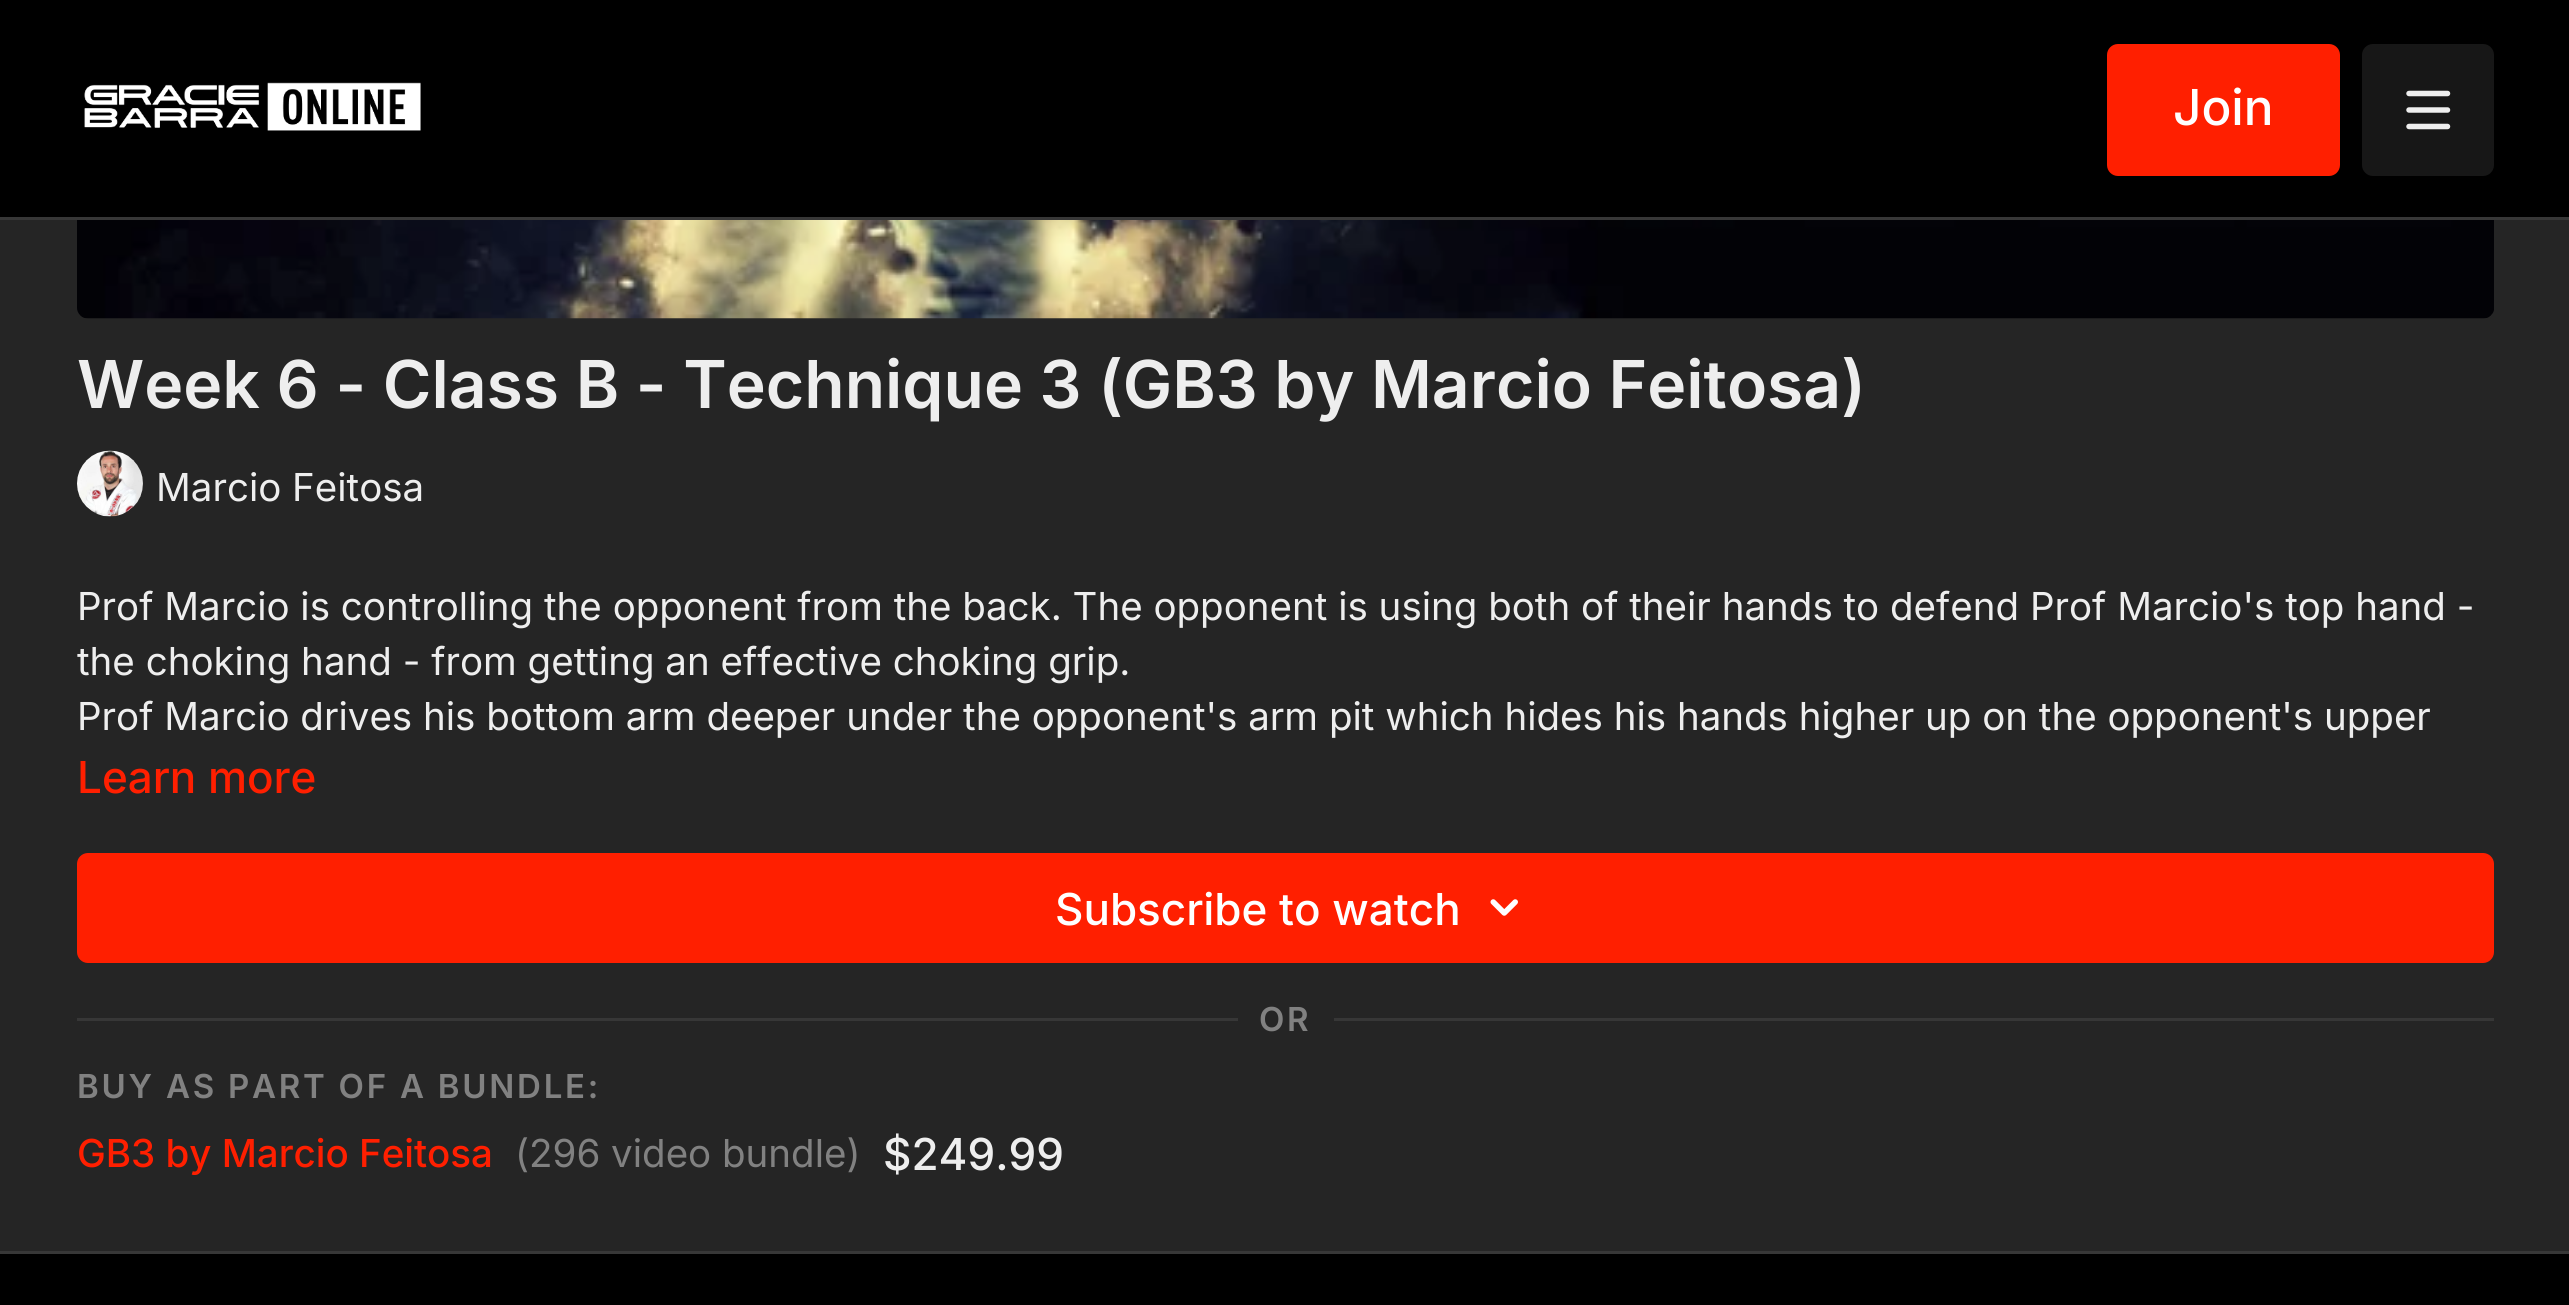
#include <cairo.h>
#include <math.h>
#include <stddef.h>

typedef struct { const char *family; double size; int italic, bold; unsigned color; } style_t;
static cairo_t *ctx;

static void ink(unsigned color) {
    cairo_set_source_rgb(ctx, (color >> 16) / 255.0, (color >> 8 & 255) / 255.0, (color & 255) / 255.0);
}

static void write(double x, double y, const char *s, const style_t *st) {
    cairo_select_font_face(ctx, st->family, st->italic ? CAIRO_FONT_SLANT_ITALIC : CAIRO_FONT_SLANT_NORMAL,
        st->bold ? CAIRO_FONT_WEIGHT_BOLD : CAIRO_FONT_WEIGHT_NORMAL);
    cairo_set_font_size(ctx, st->size);
    ink(st->color);
    cairo_move_to(ctx, x, y);
    cairo_show_text(ctx, s);
}

static void write_spaced(double x, double y, const char *s, double letter, double word) {
    cairo_move_to(ctx, x, y);
    while (*s) {
        char ch[5] = {0};
        int n = 0;
        do ch[n++] = *s++; while ((*s & 0xC0) == 0x80);
        cairo_show_text(ctx, ch);
        cairo_rel_move_to(ctx, letter + word * (*ch == ' '), 0);
    }
}

static void block(double x, double y, double w, double h, unsigned color) {
    ink(color);
    cairo_rectangle(ctx, x, y, w, h);
    cairo_fill(ctx);
}

static void round_path(double x, double y, double w, double h, double r) {
    cairo_new_sub_path(ctx);
    cairo_arc(ctx, x + w - r, y + h - r, r, 0, M_PI / 2);
    cairo_arc(ctx, x + r, y + h - r, r, M_PI / 2, M_PI);
    cairo_arc(ctx, x + r, y + r, r, M_PI, 1.5 * M_PI);
    cairo_arc(ctx, x + w - r, y + r, r, 1.5 * M_PI, 2 * M_PI);
    cairo_close_path(ctx);
}

static void paste(const char *path, double x, double y, double w, double h) {
    cairo_surface_t *image = cairo_image_surface_create_from_png(path);
    cairo_save(ctx);
    cairo_set_source_surface(ctx, image, x, y);
    cairo_rectangle(ctx, x, y, w, h);
    cairo_fill(ctx);
    cairo_restore(ctx);
    cairo_surface_destroy(image);
}

static const style_t s1 = {"Inter Medium", 49.5, 0, 0, 0xffffff};
static const style_t s2 = {"Inter SemiBold", 66, 0, 0, 0xeeeeee};
static const style_t s3 = {"Inter", 38.5, 0, 0, 0xeeeeee};
static const style_t s4 = {"Inter Medium", 44, 0, 0, 0xff1f00};
static const style_t s5 = {"Inter Medium", 44, 0, 0, 0xffffff};
static const style_t s6 = {"Inter Medium", 38.5, 0, 0, 0xff1f00};
static const style_t s7 = {"Inter", 38.5, 0, 0, 0x818181};
static const style_t s8 = {"Inter Medium", 44, 0, 0, 0xeeeeee};

int main(void) {
    cairo_surface_t *surface = cairo_image_surface_create(CAIRO_FORMAT_RGB24, 2569, 1305);
    ctx = cairo_create(surface);
    cairo_font_options_t *options = cairo_font_options_create();
    cairo_font_options_set_hint_metrics(options, CAIRO_HINT_METRICS_OFF);
    cairo_font_options_set_hint_style(options, CAIRO_HINT_STYLE_NONE);
    cairo_set_font_options(ctx, options);
    cairo_set_miter_limit(ctx, 4);
    ink(0x252525);
    cairo_paint(ctx);
    block(0, 0, 2569, 217, 0x000000);
    block(0, 217, 2569, 3, 0x373737);
    paste("pic1.png", 84, 82, 337, 49);
    ink(0xff1f00);
    round_path(2107, 44, 233, 132, 11);
    cairo_fill(ctx);
    write(2173, 125, "Join", &s1);
    ink(0x171717);
    round_path(2362, 44, 132, 132, 11);
    cairo_fill(ctx);
    paste("pic2.png", 2406, 90, 45, 40);
    paste("pic3.png", 77, 220, 2417, 99);
    write(77, 408, "Week 6 - Class B - Technique 3 (GB3 by Marcio Feitosa)", &s2);
    paste("pic4.png", 77, 450, 66, 67);
    write(156, 501, "Marcio Feitosa", &s3);
    write(77, 620, "Prof Marcio is controlling the opponent from the back. The opponent is using both of their hands to defend Prof Marcio's top hand -", &s3);
    write(77, 675, "the choking hand - from getting an effective choking grip.", &s3);
    write(77, 730, "Prof Marcio drives his bottom arm deeper under the opponent's arm pit which hides his hands higher up on the opponent's upper", &s3);
    write(77, 793, "Learn more", &s4);
    round_path(77, 853, 2417, 110, 11);
    cairo_fill(ctx);
    write(1055, 925, "Subscribe to watch", &s5);
    paste("pic5.png", 1490, 899, 28, 17);
    block(77, 1018, 2417, 3, 0x373737);
    block(1238, 1018, 96, 3, 0x252525);
    cairo_select_font_face(ctx, "Inter SemiBold", CAIRO_FONT_SLANT_NORMAL, CAIRO_FONT_WEIGHT_NORMAL);
    cairo_set_font_size(ctx, 33);
    ink(0x818181);
    write_spaced(1259, 1031, "OR", 2.75, 0);
    write_spaced(77, 1098, "BUY AS PART OF A BUNDLE:", 2.75, 0);
    write(77, 1167, "GB3 by Marcio Feitosa", &s6);
    write(515, 1167, "(296 video bundle)", &s7);
    write(883, 1170, "$249.99", &s8);
    block(0, 1254, 2569, 51, 0x000000);
    block(0, 1251, 2569, 3, 0x373737);
    cairo_surface_write_to_png(surface, "screenshot.png");
    cairo_font_options_destroy(options);
    cairo_destroy(ctx);
    cairo_surface_destroy(surface);
    return 0;
}
